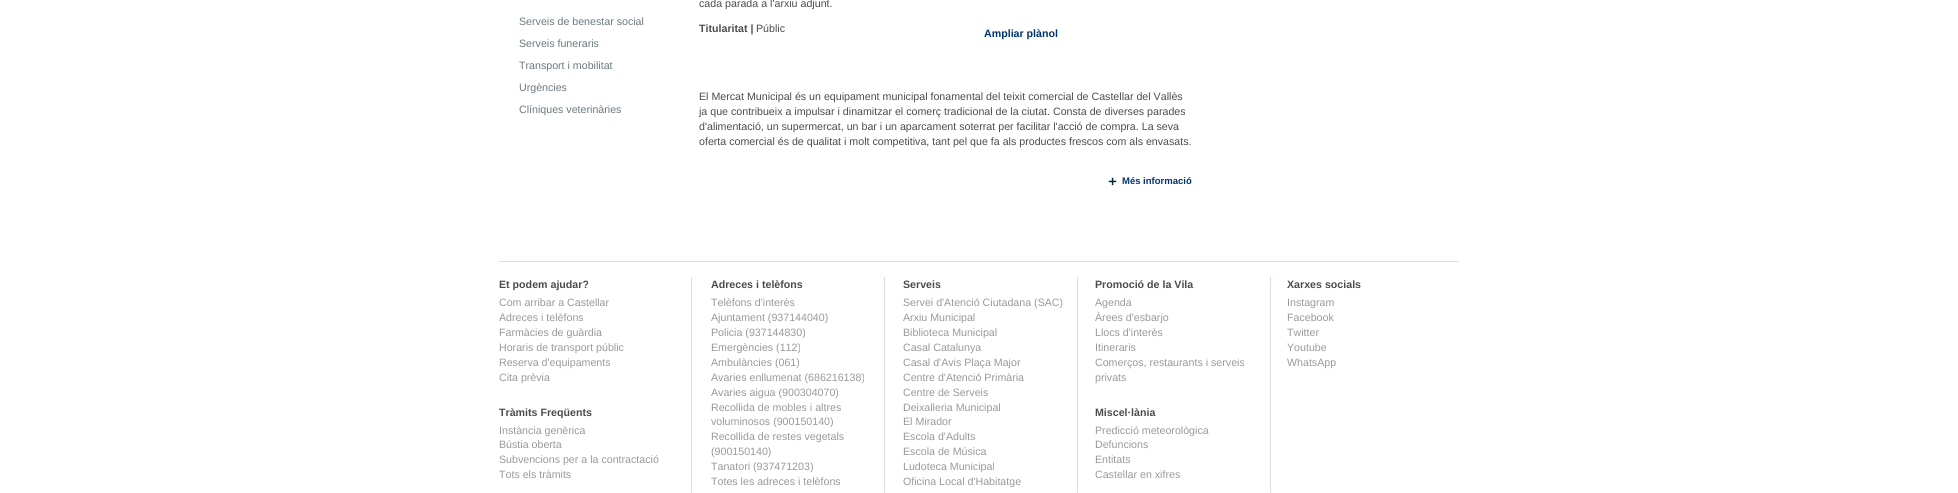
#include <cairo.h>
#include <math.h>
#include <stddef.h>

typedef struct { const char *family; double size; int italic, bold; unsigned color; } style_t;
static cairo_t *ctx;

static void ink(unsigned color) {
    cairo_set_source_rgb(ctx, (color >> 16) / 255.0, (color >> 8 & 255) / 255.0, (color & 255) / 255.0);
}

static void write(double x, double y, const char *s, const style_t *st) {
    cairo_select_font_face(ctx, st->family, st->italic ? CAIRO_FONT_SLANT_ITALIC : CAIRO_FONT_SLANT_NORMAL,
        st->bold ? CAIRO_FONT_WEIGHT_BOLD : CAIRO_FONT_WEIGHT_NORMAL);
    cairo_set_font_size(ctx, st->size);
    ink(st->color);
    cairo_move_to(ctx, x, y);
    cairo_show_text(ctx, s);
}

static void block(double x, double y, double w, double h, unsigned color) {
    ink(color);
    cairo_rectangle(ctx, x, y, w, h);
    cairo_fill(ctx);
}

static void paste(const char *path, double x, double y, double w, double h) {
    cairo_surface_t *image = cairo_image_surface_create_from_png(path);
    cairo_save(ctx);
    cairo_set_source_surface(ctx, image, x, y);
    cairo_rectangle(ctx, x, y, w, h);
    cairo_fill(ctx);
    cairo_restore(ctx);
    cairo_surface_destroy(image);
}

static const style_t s1 = {"Liberation Sans", 10.65, 0, 0, 0x6b797f};
static const style_t s2 = {"Liberation Sans", 10.65, 0, 0, 0x4c4c4c};
static const style_t s3 = {"Liberation Sans", 10.65, 0, 1, 0x4c4c4c};
static const style_t s4 = {"Liberation Sans", 10.65, 0, 1, 0x00356c};
static const style_t s5 = {"Liberation Sans", 9.5, 0, 1, 0x00356c};
static const style_t s6 = {"Liberation Sans", 10.65, 0, 0, 0x999999};

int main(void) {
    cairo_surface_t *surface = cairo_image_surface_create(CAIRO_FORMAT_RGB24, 1958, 493);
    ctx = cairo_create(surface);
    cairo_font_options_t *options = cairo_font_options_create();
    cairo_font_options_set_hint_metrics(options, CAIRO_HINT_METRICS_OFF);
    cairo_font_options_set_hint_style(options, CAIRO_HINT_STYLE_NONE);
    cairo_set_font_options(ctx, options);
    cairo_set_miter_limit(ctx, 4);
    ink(0xffffff);
    cairo_paint(ctx);
    write(519, 25, "Serveis de benestar social", &s1);
    write(519, 47, "Serveis funeraris", &s1);
    write(519, 69, "Transport i mobilitat", &s1);
    write(519, 91, "Urgències", &s1);
    write(519, 113, "Clíniques veterinàries", &s1);
    write(699, 7, "cada parada a l'arxiu adjunt.", &s2);
    write(699, 32, "Titularitat |", &s3);
    write(756, 32, "Públic", &s2);
    write(984, 37, "Ampliar plànol", &s4);
    write(699, 100, "El Mercat Municipal és un equipament municipal fonamental del teixit comercial de Castellar del Vallès", &s2);
    write(699, 115, "ja que contribueix a impulsar i dinamitzar el comerç tradicional de la ciutat. Consta de diverses parades", &s2);
    write(699, 130, "d'alimentació, un supermercat, un bar i un aparcament soterrat per facilitar l'acció de compra. La seva", &s2);
    write(699, 145, "oferta comercial és de qualitat i molt competitiva, tant pel que fa als productes frescos com als envasats.", &s2);
    paste("pic1.png", 1108, 177, 9, 9);
    write(1122, 184, "Més informació", &s5);
    block(499, 261, 960, 1, 0xdddddd);
    paste("pic2.png", 691, 277, 580, 216);
    write(499, 288, "Et podem ajudar?", &s3);
    write(499, 306, "Com arribar a Castellar", &s6);
    write(499, 321, "Adreces i telèfons", &s6);
    write(499, 336, "Farmàcies de guàrdia", &s6);
    write(499, 351, "Horaris de transport públic", &s6);
    write(499, 366, "Reserva d'equipaments", &s6);
    write(499, 381, "Cita prèvia", &s6);
    write(499, 416, "Tràmits Freqüents", &s3);
    write(499, 434, "Instància genèrica", &s6);
    write(499, 448, "Bústia oberta", &s6);
    write(499, 463, "Subvencions per a la contractació", &s6);
    write(499, 478, "Tots els tràmits", &s6);
    write(711, 288, "Adreces i telèfons", &s3);
    write(711, 306, "Telèfons d'interès", &s6);
    write(711, 321, "Ajuntament (937144040)", &s6);
    write(711, 336, "Policia (937144830)", &s6);
    write(711, 351, "Emergències (112)", &s6);
    write(711, 366, "Ambulàncies (061)", &s6);
    write(711, 381, "Avaries enllumenat (686216138)", &s6);
    write(711, 396, "Avaries aigua (900304070)", &s6);
    write(711, 411, "Recollida de mobles i altres", &s6);
    write(711, 425, "voluminosos (900150140)", &s6);
    write(711, 440, "Recollida de restes vegetals", &s6);
    write(711, 455, "(900150140)", &s6);
    write(711, 470, "Tanatori (937471203)", &s6);
    write(711, 485, "Totes les adreces i telèfons", &s6);
    write(903, 288, "Serveis", &s3);
    write(903, 306, "Servei d'Atenció Ciutadana (SAC)", &s6);
    write(903, 321, "Arxiu Municipal", &s6);
    write(903, 336, "Biblioteca Municipal", &s6);
    write(903, 351, "Casal Catalunya", &s6);
    write(903, 366, "Casal d'Avis Plaça Major", &s6);
    write(903, 381, "Centre d'Atenció Primària", &s6);
    write(903, 396, "Centre de Serveis", &s6);
    write(903, 411, "Deixalleria Municipal", &s6);
    write(903, 425, "El Mirador", &s6);
    write(903, 440, "Escola d'Adults", &s6);
    write(903, 455, "Escola de Música", &s6);
    write(903, 470, "Ludoteca Municipal", &s6);
    write(903, 485, "Oficina Local d'Habitatge", &s6);
    write(1095, 288, "Promoció de la Vila", &s3);
    write(1095, 306, "Agenda", &s6);
    write(1095, 321, "Àrees d'esbarjo", &s6);
    write(1095, 336, "Llocs d'interès", &s6);
    write(1095, 351, "Itineraris", &s6);
    write(1095, 366, "Comerços, restaurants i serveis", &s6);
    write(1095, 381, "privats", &s6);
    write(1095, 416, "Miscel·lània", &s3);
    write(1095, 434, "Predicció meteorològica", &s6);
    write(1095, 448, "Defuncions", &s6);
    write(1095, 463, "Entitats", &s6);
    write(1095, 478, "Castellar en xifres", &s6);
    write(1287, 288, "Xarxes socials", &s3);
    write(1287, 306, "Instagram", &s6);
    write(1287, 321, "Facebook", &s6);
    write(1287, 336, "Twitter", &s6);
    write(1287, 351, "Youtube", &s6);
    write(1287, 366, "WhatsApp", &s6);
    cairo_surface_write_to_png(surface, "screenshot.png");
    cairo_font_options_destroy(options);
    cairo_destroy(ctx);
    cairo_surface_destroy(surface);
    return 0;
}
